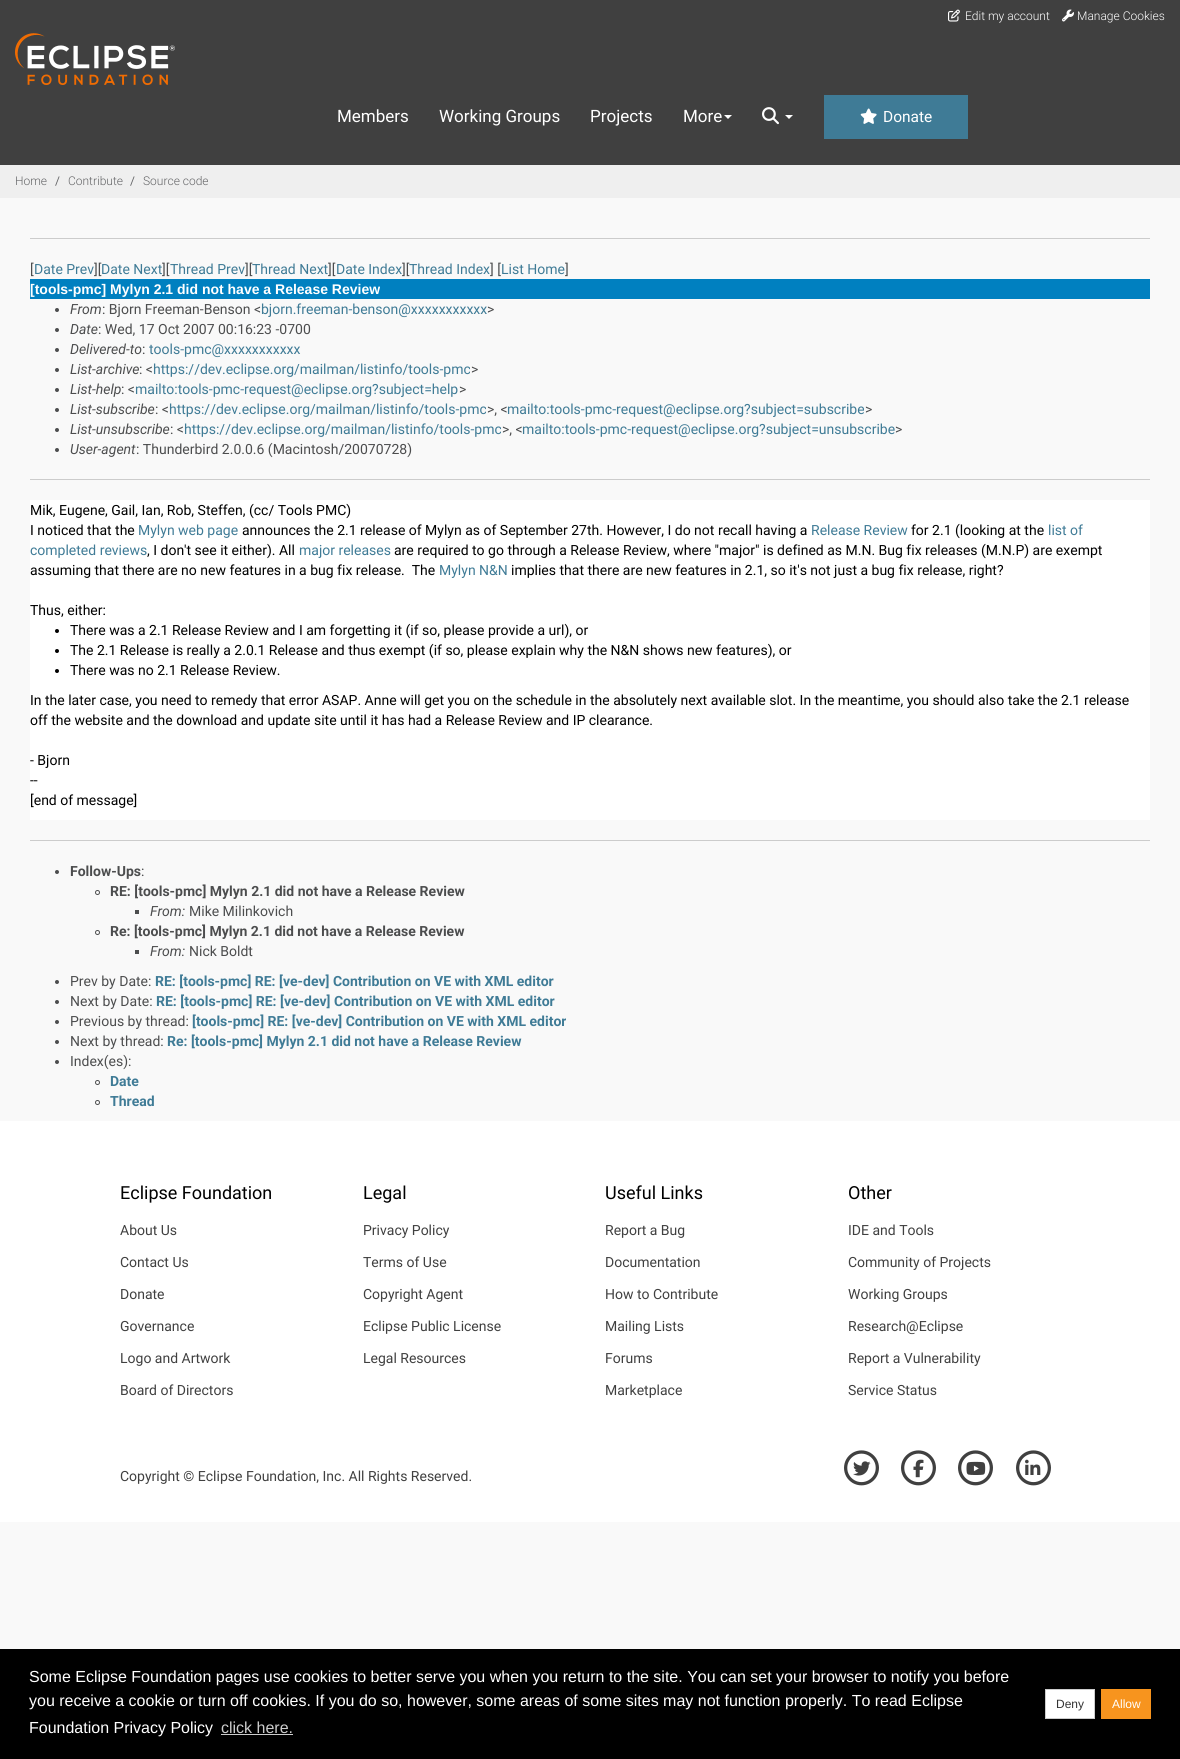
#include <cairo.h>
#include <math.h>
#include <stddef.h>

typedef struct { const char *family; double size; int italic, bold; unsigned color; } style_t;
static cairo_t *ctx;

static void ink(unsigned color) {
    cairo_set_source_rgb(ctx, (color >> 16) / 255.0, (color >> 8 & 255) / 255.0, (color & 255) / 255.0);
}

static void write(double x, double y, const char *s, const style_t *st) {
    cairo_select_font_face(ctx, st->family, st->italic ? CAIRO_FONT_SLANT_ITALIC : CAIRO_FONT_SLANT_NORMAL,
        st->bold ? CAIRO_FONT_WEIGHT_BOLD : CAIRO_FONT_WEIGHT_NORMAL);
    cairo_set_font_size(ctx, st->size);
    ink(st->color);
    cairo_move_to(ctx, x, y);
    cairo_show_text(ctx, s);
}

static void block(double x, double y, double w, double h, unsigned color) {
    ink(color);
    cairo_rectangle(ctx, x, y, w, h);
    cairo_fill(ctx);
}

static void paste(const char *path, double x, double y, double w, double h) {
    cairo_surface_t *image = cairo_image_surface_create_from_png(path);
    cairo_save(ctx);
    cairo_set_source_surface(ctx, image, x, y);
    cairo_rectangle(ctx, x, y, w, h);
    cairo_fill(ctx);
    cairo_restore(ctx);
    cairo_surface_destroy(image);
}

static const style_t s1 = {"Roboto Light", 12, 0, 0, 0xffffff};
static const style_t s2 = {"Roboto", 17, 0, 0, 0xffffff};
static const style_t s3 = {"Roboto", 15.5, 0, 0, 0xffffff};
static const style_t s4 = {"Roboto Light", 12, 0, 0, 0x656668};
static const style_t s5 = {"Roboto", 12, 0, 0, 0x656668};
static const style_t s6 = {"Roboto", 14, 0, 0, 0x4c4d4e};
static const style_t s7 = {"Roboto", 14, 0, 0, 0x3f7b96};
static const style_t s8 = {"Liberation Sans", 14, 0, 1, 0xffffff};
static const style_t s9 = {"Roboto", 14, 1, 0, 0x4c4d4e};
static const style_t s10 = {"Roboto", 14, 0, 0, 0x000000};
static const style_t s11 = {"Roboto", 14, 0, 1, 0x4c4d4e};
static const style_t s12 = {"Roboto", 14, 0, 1, 0x3f7b96};
static const style_t s13 = {"Roboto", 18, 0, 0, 0x000000};
static const style_t s14 = {"Roboto", 14, 0, 0, 0x404040};
static const style_t s15 = {"Liberation Sans", 16, 0, 0, 0xffffff};
static const style_t s16 = {"Liberation Sans", 16, 0, 0, 0xcccccc};
static const style_t s17 = {"Liberation Sans", 12, 0, 0, 0x333333};
static const style_t s18 = {"Liberation Sans", 12, 0, 0, 0xffffff};

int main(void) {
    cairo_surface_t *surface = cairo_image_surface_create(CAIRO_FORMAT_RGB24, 1180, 1759);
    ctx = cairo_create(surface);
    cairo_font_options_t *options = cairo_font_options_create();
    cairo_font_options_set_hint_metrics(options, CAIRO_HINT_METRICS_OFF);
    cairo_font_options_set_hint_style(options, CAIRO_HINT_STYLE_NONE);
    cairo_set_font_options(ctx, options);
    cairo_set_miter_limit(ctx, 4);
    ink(0xf9f9f9);
    cairo_paint(ctx);
    block(0, 0, 1180, 165, 0x404040);
    paste("pic1.png", 948, 9, 12, 13);
    write(965, 20, "Edit my account", &s1);
    paste("pic2.png", 1062, 9, 12, 13);
    write(1077, 20, "Manage Cookies", &s1);
    paste("pic3.png", 15, 33, 160, 52);
    write(337, 122, "Members", &s2);
    write(439, 122, "Working Groups", &s2);
    write(590, 122, "Projects", &s2);
    write(683, 122, "More", &s2);
    cairo_new_path(ctx);
    cairo_move_to(ctx, 724, 115);
    cairo_line_to(ctx, 732, 115);
    cairo_line_to(ctx, 728, 119);
    cairo_close_path(ctx);
    cairo_fill(ctx);
    paste("pic4.png", 762, 107, 17, 18);
    cairo_new_path(ctx);
    cairo_move_to(ctx, 785, 115);
    cairo_line_to(ctx, 793, 115);
    cairo_line_to(ctx, 789, 119);
    cairo_close_path(ctx);
    cairo_fill(ctx);
    block(824, 95, 144, 44, 0x3f7b96);
    paste("pic5.png", 860, 108, 17, 16);
    write(883, 122, "Donate", &s3);
    block(0, 165, 1180, 33, 0xefefef);
    write(15, 185, "Home", &s4);
    write(55, 185, "/", &s5);
    write(68, 185, "Contribute", &s4);
    write(130, 185, "/", &s5);
    write(143, 185, "Source code", &s4);
    block(30, 238, 1120, 1, 0xcccccc);
    write(30, 274, "[", &s6);
    write(34, 274, "Date Prev", &s7);
    write(94, 274, "][", &s6);
    write(101, 274, "Date Next", &s7);
    write(162, 274, "][", &s6);
    write(170, 274, "Thread Prev", &s7);
    write(245, 274, "][", &s6);
    write(252, 274, "Thread Next", &s7);
    write(328, 274, "][", &s6);
    write(336, 274, "Date Index", &s7);
    write(402, 274, "][", &s6);
    write(409, 274, "Thread Index", &s7);
    write(490, 274, "] [", &s6);
    write(501, 274, "List Home", &s7);
    write(565, 274, "]", &s6);
    block(30, 279, 1120, 20, 0x0080c0);
    write(30, 294, "[tools-pmc] Mylyn 2.1 did not have a Release Review", &s8);
    ink(0x4c4d4e);
    cairo_new_path(ctx);
    cairo_arc(ctx, 57, 310, 2, 0, 2 * M_PI);
    cairo_fill(ctx);
    write(70, 314, "From", &s9);
    write(102, 314, ": Bjorn Freeman-Benson <", &s6);
    write(261, 314, "bjorn.freeman-benson@xxxxxxxxxxx", &s7);
    write(487, 314, ">", &s6);
    cairo_new_path(ctx);
    cairo_arc(ctx, 57, 330, 2, 0, 2 * M_PI);
    cairo_fill(ctx);
    write(70, 334, "Date", &s9);
    write(98, 334, ": Wed, 17 Oct 2007 00:16:23 -0700", &s6);
    cairo_new_path(ctx);
    cairo_arc(ctx, 57, 350, 2, 0, 2 * M_PI);
    cairo_fill(ctx);
    write(70, 354, "Delivered-to", &s9);
    write(142, 354, ":", &s6);
    write(149, 354, "tools-pmc@xxxxxxxxxxx", &s7);
    ink(0x4c4d4e);
    cairo_new_path(ctx);
    cairo_arc(ctx, 57, 370, 2, 0, 2 * M_PI);
    cairo_fill(ctx);
    write(70, 374, "List-archive", &s9);
    write(139, 374, ": <", &s6);
    write(153, 374, "https://dev.eclipse.org/mailman/listinfo/tools-pmc", &s7);
    write(471, 374, ">", &s6);
    cairo_new_path(ctx);
    cairo_arc(ctx, 57, 390, 2, 0, 2 * M_PI);
    cairo_fill(ctx);
    write(70, 394, "List-help", &s9);
    write(121, 394, ": <", &s6);
    write(135, 394, "mailto:tools-pmc-request@eclipse.org?subject=help", &s7);
    write(459, 394, ">", &s6);
    cairo_new_path(ctx);
    cairo_arc(ctx, 57, 410, 2, 0, 2 * M_PI);
    cairo_fill(ctx);
    write(70, 414, "List-subscribe", &s9);
    write(155, 414, ": <", &s6);
    write(169, 414, "https://dev.eclipse.org/mailman/listinfo/tools-pmc", &s7);
    write(487, 414, ">, <", &s6);
    write(507, 414, "mailto:tools-pmc-request@eclipse.org?subject=subscribe", &s7);
    write(865, 414, ">", &s6);
    cairo_new_path(ctx);
    cairo_arc(ctx, 57, 430, 2, 0, 2 * M_PI);
    cairo_fill(ctx);
    write(70, 434, "List-unsubscribe", &s9);
    write(170, 434, ": <", &s6);
    write(184, 434, "https://dev.eclipse.org/mailman/listinfo/tools-pmc", &s7);
    write(502, 434, ">, <", &s6);
    write(522, 434, "mailto:tools-pmc-request@eclipse.org?subject=unsubscribe", &s7);
    write(895, 434, ">", &s6);
    cairo_new_path(ctx);
    cairo_arc(ctx, 57, 450, 2, 0, 2 * M_PI);
    cairo_fill(ctx);
    write(70, 454, "User-agent", &s9);
    write(136, 454, ": Thunderbird 2.0.0.6 (Macintosh/20070728)", &s6);
    block(30, 479, 1120, 1, 0xcccccc);
    block(30, 500, 1120, 320, 0xffffff);
    write(30, 515, "Mik, Eugene, Gail, Ian, Rob, Steffen, (cc/ Tools PMC)", &s10);
    write(30, 535, "I noticed that the", &s10);
    write(138, 535, "Mylyn web page", &s7);
    write(242, 535, "announces the 2.1 release of Mylyn as of September 27th. However, I do not recall having a", &s10);
    write(811, 535, "Release Review", &s7);
    write(911, 535, "for 2.1 (looking at the", &s10);
    write(1048, 535, "list of", &s7);
    write(30, 555, "completed reviews", &s7);
    write(147, 555, ", I don't see it either). All", &s10);
    write(299, 555, "major releases", &s7);
    write(394, 555, "are required to go through a Release Review, where \"major\" is defined as M.N. Bug fix releases (M.N.P) are exempt", &s10);
    write(30, 575, "assuming that there are no new features in a bug fix release.  The", &s10);
    write(439, 575, "Mylyn N&N", &s7);
    write(511, 575, "implies that there are new features in 2.1, so it's not just a bug fix release, right?", &s10);
    write(30, 615, "Thus, either:", &s10);
    cairo_new_path(ctx);
    cairo_arc(ctx, 57, 631, 2, 0, 2 * M_PI);
    cairo_fill(ctx);
    write(70, 635, "There was a 2.1 Release Review and I am forgetting it (if so, please provide a url), or", &s10);
    cairo_new_path(ctx);
    cairo_arc(ctx, 57, 651, 2, 0, 2 * M_PI);
    cairo_fill(ctx);
    write(70, 655, "The 2.1 Release is really a 2.0.1 Release and thus exempt (if so, please explain why the N&N shows new features), or", &s10);
    cairo_new_path(ctx);
    cairo_arc(ctx, 57, 671, 2, 0, 2 * M_PI);
    cairo_fill(ctx);
    write(70, 675, "There was no 2.1 Release Review.", &s10);
    write(30, 705, "In the later case, you need to remedy that error ASAP. Anne will get you on the schedule in the absolutely next available slot. In the meantime, you should also take the 2.1 release", &s10);
    write(30, 725, "off the website and the download and update site until it has had a Release Review and IP clearance.", &s10);
    write(30, 765, "- Bjorn", &s10);
    write(30, 785, "--", &s10);
    write(30, 805, "[end of message]", &s10);
    block(30, 840, 1120, 1, 0xcccccc);
    ink(0x4c4d4e);
    cairo_new_path(ctx);
    cairo_arc(ctx, 57, 872, 2, 0, 2 * M_PI);
    cairo_fill(ctx);
    write(70, 876, "Follow-Ups", &s11);
    write(141, 876, ":", &s6);
    cairo_new_path(ctx);
    cairo_arc(ctx, 97.5, 892.5, 2, 0, 2 * M_PI);
    cairo_set_line_width(ctx, 1);
    cairo_stroke(ctx);
    write(110, 896, "RE: [tools-pmc] Mylyn 2.1 did not have a Release Review", &s11);
    block(135, 910, 4, 4, 0x4c4d4e);
    write(150, 916, "From:", &s9);
    write(189, 916, "Mike Milinkovich", &s6);
    cairo_new_path(ctx);
    cairo_arc(ctx, 97.5, 932.5, 2, 0, 2 * M_PI);
    cairo_stroke(ctx);
    write(110, 936, "Re: [tools-pmc] Mylyn 2.1 did not have a Release Review", &s11);
    block(135, 950, 4, 4, 0x4c4d4e);
    write(150, 956, "From:", &s9);
    write(189, 956, "Nick Boldt", &s6);
    cairo_new_path(ctx);
    cairo_arc(ctx, 57, 982, 2, 0, 2 * M_PI);
    cairo_fill(ctx);
    write(70, 986, "Prev by Date:", &s6);
    write(155, 986, "RE: [tools-pmc] RE: [ve-dev] Contribution on VE with XML editor", &s12);
    ink(0x4c4d4e);
    cairo_new_path(ctx);
    cairo_arc(ctx, 57, 1002, 2, 0, 2 * M_PI);
    cairo_fill(ctx);
    write(70, 1006, "Next by Date:", &s6);
    write(156, 1006, "RE: [tools-pmc] RE: [ve-dev] Contribution on VE with XML editor", &s12);
    ink(0x4c4d4e);
    cairo_new_path(ctx);
    cairo_arc(ctx, 57, 1022, 2, 0, 2 * M_PI);
    cairo_fill(ctx);
    write(70, 1026, "Previous by thread:", &s6);
    write(192, 1026, "[tools-pmc] RE: [ve-dev] Contribution on VE with XML editor", &s12);
    ink(0x4c4d4e);
    cairo_new_path(ctx);
    cairo_arc(ctx, 57, 1042, 2, 0, 2 * M_PI);
    cairo_fill(ctx);
    write(70, 1046, "Next by thread:", &s6);
    write(167, 1046, "Re: [tools-pmc] Mylyn 2.1 did not have a Release Review", &s12);
    ink(0x4c4d4e);
    cairo_new_path(ctx);
    cairo_arc(ctx, 57, 1062, 2, 0, 2 * M_PI);
    cairo_fill(ctx);
    write(70, 1066, "Index(es):", &s6);
    cairo_new_path(ctx);
    cairo_arc(ctx, 97.5, 1082.5, 2, 0, 2 * M_PI);
    cairo_stroke(ctx);
    write(110, 1086, "Date", &s12);
    cairo_new_path(ctx);
    cairo_arc(ctx, 97.5, 1102.5, 2, 0, 2 * M_PI);
    ink(0x4c4d4e);
    cairo_stroke(ctx);
    write(110, 1106, "Thread", &s12);
    block(0, 1121, 1180, 401, 0xffffff);
    write(120, 1199, "Eclipse Foundation", &s13);
    write(120, 1235, "About Us", &s14);
    write(120, 1267, "Contact Us", &s14);
    write(120, 1299, "Donate", &s14);
    write(120, 1331, "Governance", &s14);
    write(120, 1363, "Logo and Artwork", &s14);
    write(120, 1395, "Board of Directors", &s14);
    write(363, 1199, "Legal", &s13);
    write(363, 1235, "Privacy Policy", &s14);
    write(363, 1267, "Terms of Use", &s14);
    write(363, 1299, "Copyright Agent", &s14);
    write(363, 1331, "Eclipse Public License", &s14);
    write(363, 1363, "Legal Resources", &s14);
    write(605, 1199, "Useful Links", &s13);
    write(605, 1235, "Report a Bug", &s14);
    write(605, 1267, "Documentation", &s14);
    write(605, 1299, "How to Contribute", &s14);
    write(605, 1331, "Mailing Lists", &s14);
    write(605, 1363, "Forums", &s14);
    write(605, 1395, "Marketplace", &s14);
    write(848, 1199, "Other", &s13);
    write(848, 1235, "IDE and Tools", &s14);
    write(848, 1267, "Community of Projects", &s14);
    write(848, 1299, "Working Groups", &s14);
    write(848, 1331, "Research@Eclipse", &s14);
    write(848, 1363, "Report a Vulnerability", &s14);
    write(848, 1395, "Service Status", &s14);
    write(120, 1481, "Copyright © Eclipse Foundation, Inc. All Rights Reserved.", &s14);
    paste("pic6.png", 844, 1450, 35, 36);
    paste("pic7.png", 853, 1461, 18, 15);
    paste("pic6.png", 901, 1450, 35, 36);
    paste("pic8.png", 913, 1459, 11, 19);
    paste("pic6.png", 958, 1450, 35, 36);
    paste("pic9.png", 966, 1461, 20, 14);
    paste("pic6.png", 1016, 1450, 35, 36);
    paste("pic10.png", 1025, 1459, 16, 16);
    block(0, 1649, 1180, 110, 0x000000);
    write(29, 1682, "Some Eclipse Foundation pages use cookies to better serve you when you return to the site. You can set your browser to notify you before", &s15);
    write(29, 1706, "you receive a cookie or turn off cookies. If you do so, however, some areas of some sites may not function properly. To read Eclipse", &s15);
    write(29, 1733, "Foundation Privacy Policy", &s15);
    write(221, 1733, "click here.", &s16);
    block(221, 1734, 72, 1, 0xcccccc);
    ink(0xffffff);
    cairo_rectangle(ctx, 1045.5, 1689.5, 49, 29);
    cairo_fill_preserve(ctx);
    ink(0xcccccc);
    cairo_stroke(ctx);
    write(1056, 1708, "Deny", &s17);
    block(1101, 1689, 50, 30, 0xf7941e);
    write(1112, 1708, "Allow", &s18);
    cairo_surface_write_to_png(surface, "screenshot.png");
    cairo_font_options_destroy(options);
    cairo_destroy(ctx);
    cairo_surface_destroy(surface);
    return 0;
}
